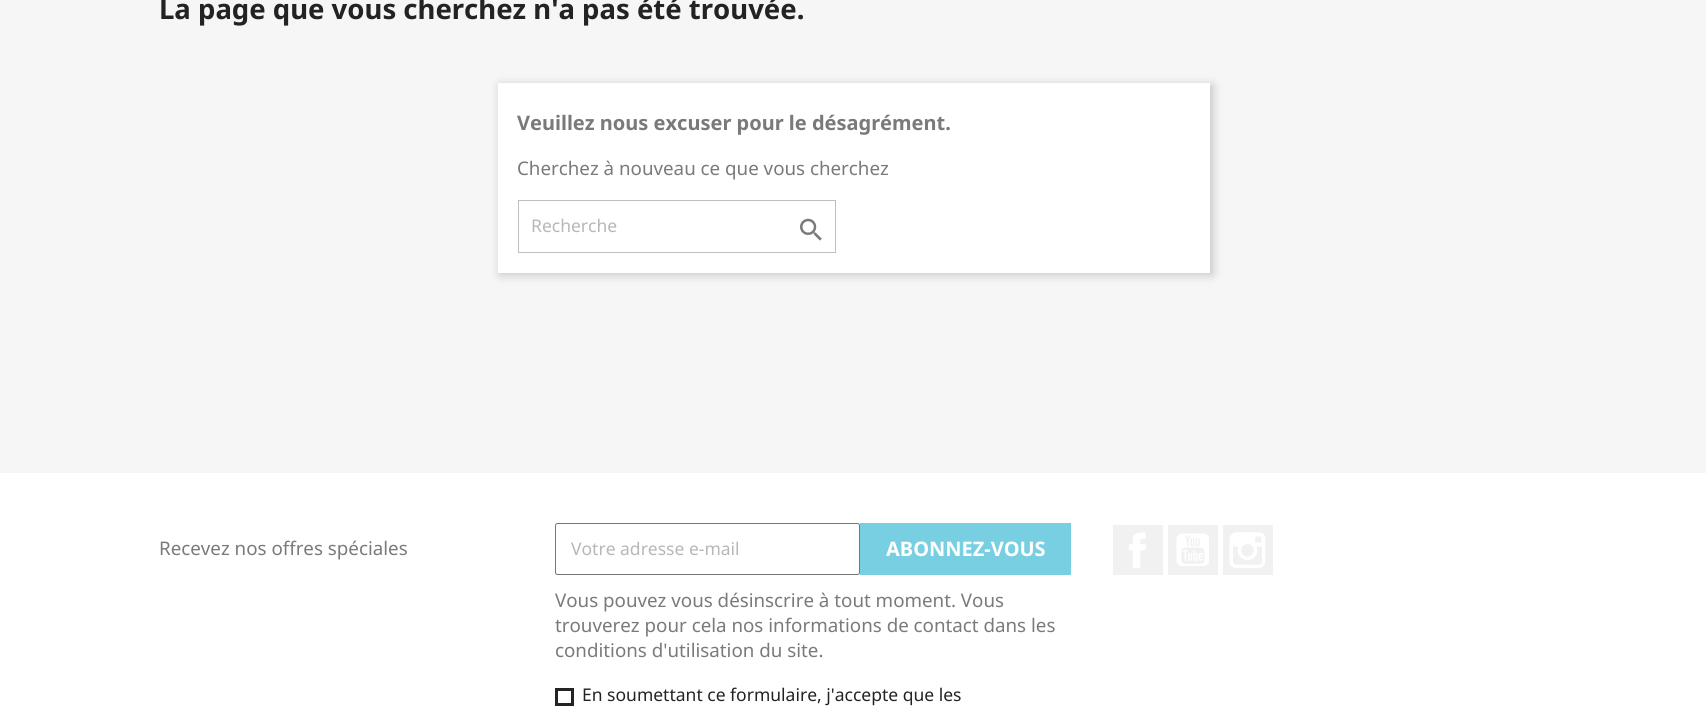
#include <cairo.h>
#include <math.h>
#include <stddef.h>

typedef struct { const char *family; double size; int italic, bold; unsigned color; } style_t;
static cairo_t *ctx;

static void ink(unsigned color) {
    cairo_set_source_rgb(ctx, (color >> 16) / 255.0, (color >> 8 & 255) / 255.0, (color & 255) / 255.0);
}

static void write(double x, double y, const char *s, const style_t *st) {
    cairo_select_font_face(ctx, st->family, st->italic ? CAIRO_FONT_SLANT_ITALIC : CAIRO_FONT_SLANT_NORMAL,
        st->bold ? CAIRO_FONT_WEIGHT_BOLD : CAIRO_FONT_WEIGHT_NORMAL);
    cairo_set_font_size(ctx, st->size);
    ink(st->color);
    cairo_move_to(ctx, x, y);
    cairo_show_text(ctx, s);
}

static void block(double x, double y, double w, double h, unsigned color) {
    ink(color);
    cairo_rectangle(ctx, x, y, w, h);
    cairo_fill(ctx);
}

static void round_path(double x, double y, double w, double h, double r) {
    cairo_new_sub_path(ctx);
    cairo_arc(ctx, x + w - r, y + h - r, r, 0, M_PI / 2);
    cairo_arc(ctx, x + r, y + h - r, r, M_PI / 2, M_PI);
    cairo_arc(ctx, x + r, y + r, r, M_PI, 1.5 * M_PI);
    cairo_arc(ctx, x + w - r, y + r, r, 1.5 * M_PI, 2 * M_PI);
    cairo_close_path(ctx);
}

static void blur_box(double x, double y, double w, double h, double r, double blur, double alpha) {
    cairo_push_group_with_content(ctx, CAIRO_CONTENT_ALPHA);
    cairo_set_operator(ctx, CAIRO_OPERATOR_SOURCE);
    for (int i = 15; i >= -15 && fmin(w, h) + blur * i / 3 > 0; i -= 2) {
        double e = blur * i / 6;
        cairo_set_source_rgba(ctx, 0, 0, 0, alpha * erfc((i - 1) / 8.5) / 2);
        round_path(x - e, y - e, w + 2 * e, h + 2 * e, fmax(0, fmin(r + e + blur * .6, fmin(w, h) / 2 + e)));
        cairo_fill(ctx);
    }
    cairo_pattern_t *soft = cairo_pop_group(ctx);
    cairo_mask(ctx, soft);
    cairo_pattern_destroy(soft);
}

static void paste(const char *path, double x, double y, double w, double h) {
    cairo_surface_t *image = cairo_image_surface_create_from_png(path);
    cairo_save(ctx);
    cairo_set_source_surface(ctx, image, x, y);
    cairo_rectangle(ctx, x, y, w, h);
    cairo_fill(ctx);
    cairo_restore(ctx);
    cairo_surface_destroy(image);
}

static const style_t s1 = {"Noto Sans", 27.5, 0, 1, 0x232323};
static const style_t s2 = {"Noto Sans", 20, 0, 1, 0x7a7a7a};
static const style_t s3 = {"Noto Sans", 18.75, 0, 0, 0x7a7a7a};
static const style_t s4 = {"Noto Sans", 17.5, 0, 0, 0xb7b7b7};
static const style_t s5 = {"Noto Sans", 20, 0, 1, 0xffffff};
static const style_t s6 = {"Noto Sans", 17.5, 0, 0, 0x232323};

int main(void) {
    cairo_surface_t *surface = cairo_image_surface_create(CAIRO_FORMAT_RGB24, 1706, 709);
    ctx = cairo_create(surface);
    cairo_font_options_t *options = cairo_font_options_create();
    cairo_font_options_set_hint_metrics(options, CAIRO_HINT_METRICS_OFF);
    cairo_font_options_set_hint_style(options, CAIRO_HINT_STYLE_NONE);
    cairo_set_font_options(ctx, options);
    cairo_set_miter_limit(ctx, 4);
    ink(0xffffff);
    cairo_paint(ctx);
    block(0, 0, 1706, 473, 0xf6f6f6);
    write(159, 19, "La page que vous cherchez n'a pas été trouvée.", &s1);
    ink(0x000000);
    blur_box(500, 85, 713, 190, 0, 5, 0.2);
    block(498, 83, 712, 190, 0xffffff);
    write(517, 130, "Veuillez nous excuser pour le désagrément.", &s2);
    write(517, 175, "Cherchez à nouveau ce que vous cherchez", &s3);
    cairo_rectangle(ctx, 518.5, 200.5, 317, 52);
    ink(0xbfbfbf);
    cairo_set_line_width(ctx, 1);
    cairo_stroke(ctx);
    write(531, 232, "Recherche", &s4);
    paste("pic1.png", 800, 218, 22, 23);
    write(159, 555, "Recevez nos offres spéciales", &s3);
    round_path(555.5, 523.5, 304, 51, 2);
    ink(0x767676);
    cairo_stroke(ctx);
    write(571, 555, "Votre adresse e-mail", &s4);
    block(860, 523, 211, 52, 0x78cfe2);
    write(886, 556, "ABONNEZ-VOUS", &s5);
    write(555, 607, "Vous pouvez vous désinscrire à tout moment. Vous", &s3);
    write(555, 632, "trouverez pour cela nos informations de contact dans les", &s3);
    write(555, 657, "conditions d'utilisation du site.", &s3);
    cairo_rectangle(ctx, 556.5, 689.5, 16, 15);
    ink(0x232323);
    cairo_set_line_width(ctx, 3);
    cairo_stroke(ctx);
    write(582, 701, "En soumettant ce formulaire, j'accepte que les", &s6);
    block(1113, 525, 50, 50, 0xf1f1f1);
    paste("pic2.png", 1129, 532, 17, 36);
    block(1168, 525, 50, 50, 0xf1f1f1);
    paste("pic3.png", 1176, 533, 33, 33);
    block(1223, 525, 50, 50, 0xf1f1f1);
    paste("pic4.png", 1229, 532, 37, 36);
    cairo_surface_write_to_png(surface, "screenshot.png");
    cairo_font_options_destroy(options);
    cairo_destroy(ctx);
    cairo_surface_destroy(surface);
    return 0;
}
